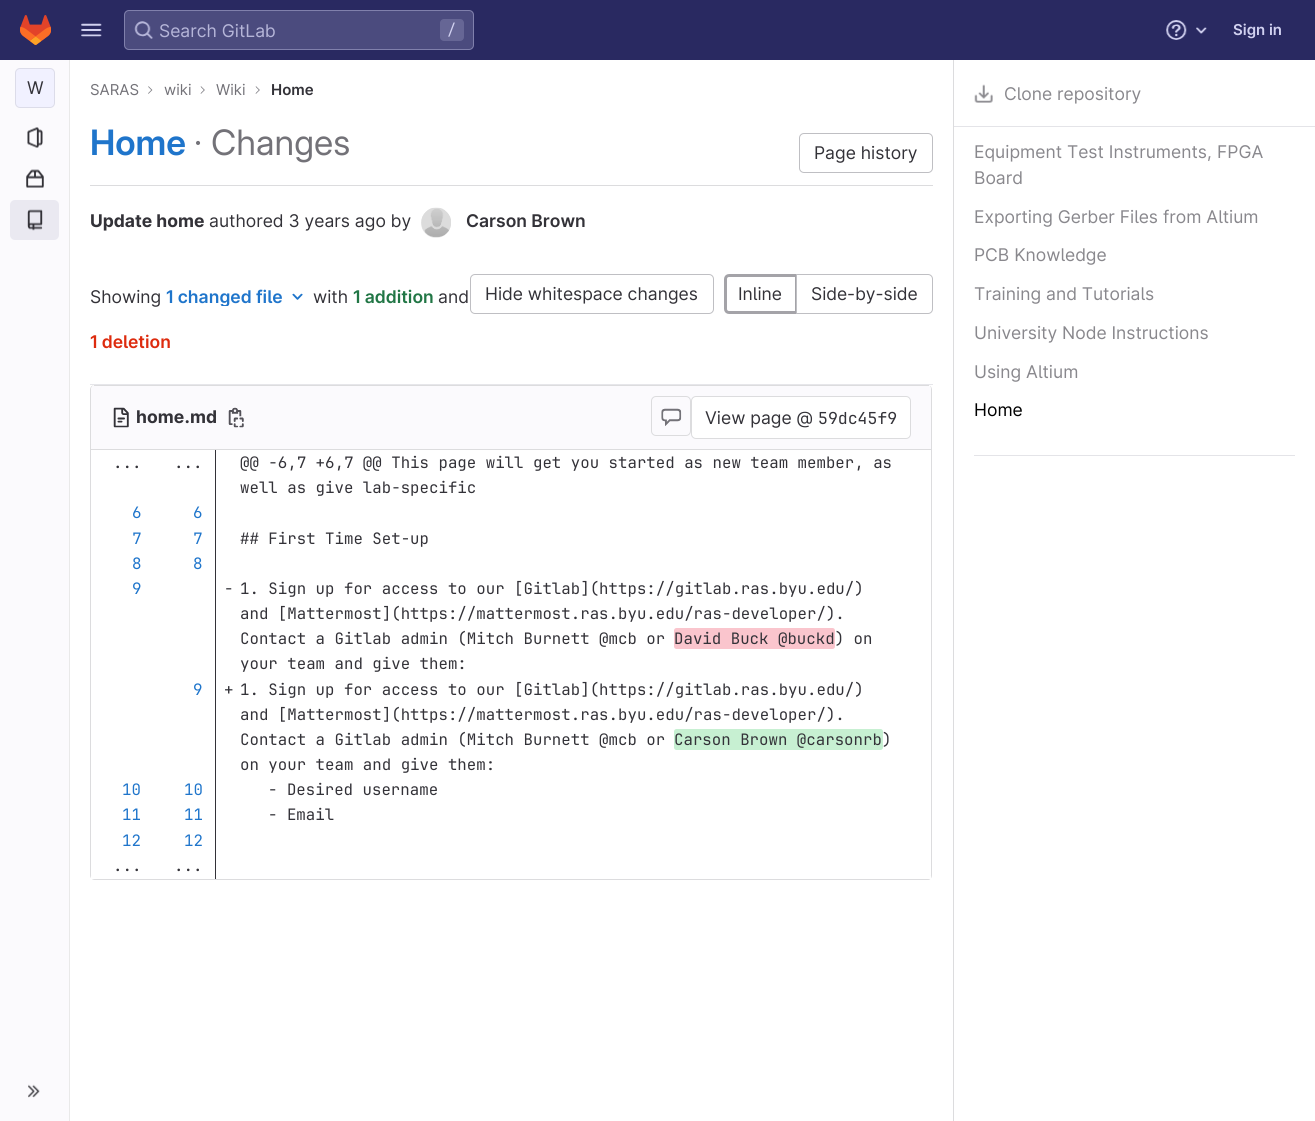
#include <cairo.h>
#include <math.h>
#include <stddef.h>

typedef struct { const char *family; double size; int italic, bold; unsigned color; } style_t;
static cairo_t *ctx;

static void ink(unsigned color) {
    cairo_set_source_rgb(ctx, (color >> 16) / 255.0, (color >> 8 & 255) / 255.0, (color & 255) / 255.0);
}

static void write(double x, double y, const char *s, const style_t *st) {
    cairo_select_font_face(ctx, st->family, st->italic ? CAIRO_FONT_SLANT_ITALIC : CAIRO_FONT_SLANT_NORMAL,
        st->bold ? CAIRO_FONT_WEIGHT_BOLD : CAIRO_FONT_WEIGHT_NORMAL);
    cairo_set_font_size(ctx, st->size);
    ink(st->color);
    cairo_move_to(ctx, x, y);
    cairo_show_text(ctx, s);
}

static void block(double x, double y, double w, double h, unsigned color) {
    ink(color);
    cairo_rectangle(ctx, x, y, w, h);
    cairo_fill(ctx);
}

static void round_path(double x, double y, double w, double h, double r) {
    cairo_new_sub_path(ctx);
    cairo_arc(ctx, x + w - r, y + h - r, r, 0, M_PI / 2);
    cairo_arc(ctx, x + r, y + h - r, r, M_PI / 2, M_PI);
    cairo_arc(ctx, x + r, y + r, r, M_PI, 1.5 * M_PI);
    cairo_arc(ctx, x + w - r, y + r, r, 1.5 * M_PI, 2 * M_PI);
    cairo_close_path(ctx);
}

static void paste(const char *path, double x, double y, double w, double h) {
    cairo_surface_t *image = cairo_image_surface_create_from_png(path);
    cairo_save(ctx);
    cairo_set_source_surface(ctx, image, x, y);
    cairo_rectangle(ctx, x, y, w, h);
    cairo_fill(ctx);
    cairo_restore(ctx);
    cairo_surface_destroy(image);
}

static const style_t s1 = {"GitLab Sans", 17.5, 0, 0, 0xb6b6d9};
static const style_t s2 = {"JetBrains Mono", 15, 0, 0, 0xd1d1f0};
static const style_t s3 = {"GitLab Sans SemiBold", 15, 0, 0, 0xd1d1f0};
static const style_t s4 = {"GitLab Sans", 17.5, 0, 0, 0x333238};
static const style_t s5 = {"GitLab Sans", 15, 0, 0, 0x737278};
static const style_t s6 = {"GitLab Sans SemiBold", 15, 0, 0, 0x333238};
static const style_t s7 = {"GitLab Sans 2 SemiBold", 35, 0, 0, 0x1f75cb};
static const style_t s8 = {"GitLab Sans 2", 35, 0, 0, 0x737278};
static const style_t s9 = {"GitLab Sans", 17.5, 0, 0, 0x89888d};
static const style_t s10 = {"GitLab Sans", 17.5, 0, 0, 0x000000};
static const style_t s11 = {"GitLab Sans", 17.5, 0, 1, 0x333238};
static const style_t s12 = {"GitLab Sans SemiBold", 17.5, 0, 0, 0x333238};
static const style_t s13 = {"GitLab Sans SemiBold", 17.5, 0, 0, 0x1f75cb};
static const style_t s14 = {"GitLab Sans SemiBold", 17.5, 0, 0, 0x217645};
static const style_t s15 = {"GitLab Sans SemiBold", 17.5, 0, 0, 0xdd2b0e};
static const style_t s16 = {"JetBrains Mono", 16.5, 0, 0, 0x333238};
static const style_t s17 = {"JetBrains Mono", 15.75, 0, 0, 0x333238};
static const style_t s18 = {"JetBrains Mono", 15.75, 0, 0, 0x1f75cb};

int main(void) {
    cairo_surface_t *surface = cairo_image_surface_create(CAIRO_FORMAT_RGB24, 1315, 1121);
    ctx = cairo_create(surface);
    cairo_font_options_t *options = cairo_font_options_create();
    cairo_font_options_set_hint_metrics(options, CAIRO_HINT_METRICS_OFF);
    cairo_font_options_set_hint_style(options, CAIRO_HINT_STYLE_NONE);
    cairo_set_font_options(ctx, options);
    cairo_set_miter_limit(ctx, 4);
    ink(0xffffff);
    cairo_paint(ctx);
    block(0, 0, 1315, 60, 0x292961);
    paste("pic1.png", 20, 15, 31, 30);
    paste("pic2.png", 81, 23, 21, 14);
    ink(0x4b4b7e);
    round_path(124, 10, 350, 40, 5);
    cairo_fill(ctx);
    round_path(124.5, 10.5, 349, 39, 4.5);
    cairo_set_source_rgba(ctx, 0.82, 0.82, 0.941, 0.4);
    cairo_set_line_width(ctx, 1);
    cairo_stroke(ctx);
    paste("pic3.png", 134, 21, 19, 18);
    write(159, 37, "Search GitLab", &s1);
    ink(0x666695);
    round_path(440, 19, 24, 22, 4);
    cairo_fill(ctx);
    write(447, 35, "/", &s2);
    paste("pic4.png", 1166, 20, 21, 20);
    paste("pic5.png", 1196, 27, 11, 7);
    write(1233, 35, "Sign in", &s3);
    block(0, 60, 69, 1061, 0xfbfafd);
    block(69, 60, 1, 1061, 0xe9e9e9);
    ink(0xf1f1ff);
    round_path(15, 68, 40, 40, 5);
    cairo_fill(ctx);
    round_path(15.5, 68.5, 39, 39, 4.5);
    cairo_set_source_rgba(ctx, 0.122, 0.118, 0.141, 0.1);
    cairo_stroke(ctx);
    write(27, 94, "W", &s4);
    paste("pic6.png", 27, 127, 16, 21);
    paste("pic7.png", 26, 169, 18, 19);
    ink(0xeae9f1);
    round_path(10, 200, 49, 40, 5);
    cairo_fill(ctx);
    paste("pic8.png", 27, 209, 16, 22);
    paste("pic9.png", 28, 1084, 12, 14);
    write(90, 95, "SARAS", &s5);
    paste("pic10.png", 148, 86, 5, 8);
    write(164, 95, "wiki", &s5);
    paste("pic11.png", 200, 86, 5, 8);
    write(216, 95, "Wiki", &s5);
    paste("pic11.png", 255, 86, 5, 8);
    write(271, 95, "Home", &s6);
    block(90, 185, 843, 1, 0xdcdcde);
    write(90, 155, "Home", &s7);
    write(194, 155, "· Changes", &s8);
    round_path(799.5, 133.5, 133, 39, 4.5);
    ink(0xbfbfc3);
    cairo_stroke(ctx);
    write(814, 159, "Page history", &s4);
    block(953, 60, 1, 1061, 0xdcdcde);
    block(954, 126, 361, 1, 0xe4e4e8);
    paste("pic12.png", 974, 84, 19, 19);
    write(1004, 100, "Clone repository", &s9);
    block(974, 455, 321, 1, 0xe4e4e8);
    write(974, 158, "Equipment Test Instruments, FPGA", &s9);
    write(974, 184, "Board", &s9);
    write(974, 223, "Exporting Gerber Files from Altium", &s9);
    write(974, 261, "PCB Knowledge", &s9);
    write(974, 300, "Training and Tutorials", &s9);
    write(974, 339, "University Node Instructions", &s9);
    write(974, 378, "Using Altium", &s9);
    write(974, 416, "Home", &s10);
    write(90, 227, "Update home", &s11);
    write(209, 227, "authored 3 years ago by", &s4);
    cairo_new_path(ctx);
    cairo_arc(ctx, 436, 223, 14.5, 0, 2 * M_PI);
    ink(0xe9e9e9);
    cairo_stroke(ctx);
    paste("pic13.png", 421, 207, 30, 30);
    write(466, 227, "Carson Brown", &s12);
    block(90, 384, 843, 1, 0xe6e6ea);
    write(90, 303, "Showing", &s4);
    cairo_save(ctx);
    cairo_rectangle(ctx, 166, 286, 117, 20);
    cairo_clip(ctx);
    write(166, 303, "1 changed file", &s13);
    cairo_restore(ctx);
    paste("pic14.png", 292, 293, 11, 7);
    write(313, 303, "with", &s4);
    write(353, 303, "1 addition", &s14);
    write(438, 303, "and", &s4);
    write(90, 348, "1 deletion", &s15);
    round_path(470.5, 274.5, 243, 39, 4.5);
    ink(0xbfbfc3);
    cairo_stroke(ctx);
    write(485, 300, "Hide whitespace changes", &s4);
    cairo_new_path(ctx);
    cairo_move_to(ctx, 729, 275.5);
    cairo_line_to(ctx, 796.5, 275.5);
    cairo_line_to(ctx, 796.5, 312.5);
    cairo_line_to(ctx, 729, 312.5);
    cairo_curve_to(ctx, 727, 312.5, 725.5, 311, 725.5, 309);
    cairo_line_to(ctx, 725.5, 279);
    cairo_curve_to(ctx, 725.5, 277, 727, 275.5, 729, 275.5);
    cairo_close_path(ctx);
    ink(0xa4a3a8);
    cairo_set_line_width(ctx, 3);
    cairo_stroke(ctx);
    write(738, 300, "Inline", &s4);
    ink(0xffffff);
    cairo_new_path(ctx);
    cairo_move_to(ctx, 796.5, 274.5);
    cairo_line_to(ctx, 928, 274.5);
    cairo_curve_to(ctx, 930.5, 274.5, 932.5, 276.5, 932.5, 279);
    cairo_line_to(ctx, 932.5, 309);
    cairo_curve_to(ctx, 932.5, 311.5, 930.5, 313.5, 928, 313.5);
    cairo_line_to(ctx, 796.5, 313.5);
    cairo_close_path(ctx);
    cairo_fill_preserve(ctx);
    ink(0xbfbfc3);
    cairo_set_line_width(ctx, 1);
    cairo_stroke(ctx);
    write(811, 300, "Side-by-side", &s4);
    ink(0xdcdcde);
    cairo_set_fill_rule(ctx, CAIRO_FILL_RULE_EVEN_ODD);
    cairo_new_path(ctx);
    cairo_move_to(ctx, 95, 385);
    cairo_line_to(ctx, 928, 385);
    cairo_curve_to(ctx, 930, 385, 932, 387, 932, 390);
    cairo_line_to(ctx, 932, 875);
    cairo_curve_to(ctx, 932, 878, 930, 880, 928, 880);
    cairo_line_to(ctx, 95, 880);
    cairo_curve_to(ctx, 92, 880, 90, 878, 90, 875);
    cairo_line_to(ctx, 90, 390);
    cairo_curve_to(ctx, 90, 387, 92, 385, 95, 385);
    cairo_close_path(ctx);
    cairo_move_to(ctx, 95, 385);
    cairo_line_to(ctx, 928, 385);
    cairo_curve_to(ctx, 930, 385, 931, 387, 931, 390);
    cairo_line_to(ctx, 931, 875);
    cairo_curve_to(ctx, 931, 877, 930, 879, 928, 879);
    cairo_line_to(ctx, 95, 879);
    cairo_curve_to(ctx, 93, 879, 91, 877, 91, 875);
    cairo_line_to(ctx, 91, 390);
    cairo_curve_to(ctx, 91, 387, 93, 385, 95, 385);
    cairo_close_path(ctx);
    cairo_fill(ctx);
    ink(0xfbfafd);
    cairo_new_path(ctx);
    cairo_move_to(ctx, 96, 385);
    cairo_line_to(ctx, 926, 385);
    cairo_curve_to(ctx, 929, 385, 931, 387, 931, 390);
    cairo_line_to(ctx, 931, 450);
    cairo_line_to(ctx, 91, 450);
    cairo_line_to(ctx, 91, 390);
    cairo_curve_to(ctx, 91, 387, 93, 385, 96, 385);
    cairo_close_path(ctx);
    cairo_fill(ctx);
    block(94, 385, 835, 1, 0xdcdcde);
    block(91, 449, 840, 1, 0xdcdcde);
    paste("pic15.png", 113, 407, 16, 21);
    write(136, 423, "home.md", &s11);
    paste("pic16.png", 228, 407, 16, 21);
    round_path(651.5, 396.5, 39, 39, 4.5);
    ink(0xdcdcde);
    cairo_stroke(ctx);
    paste("pic17.png", 661, 408, 21, 18);
    ink(0xffffff);
    round_path(691.5, 396.5, 219, 42, 4.5);
    cairo_fill_preserve(ctx);
    ink(0xdcdcde);
    cairo_stroke(ctx);
    write(705, 424, "View page @", &s4);
    write(818, 424, "59dc45f9", &s16);
    block(91, 876, 840, 3, 0xffffff);
    write(113, 468, "...", &s17);
    block(215, 450, 1, 429, 0x333238);
    write(174, 468, "...", &s17);
    write(240, 468, "@@ -6,7 +6,7 @@ This page will get you started as new team member, as", &s17);
    write(240, 493, "well as give lab-specific", &s17);
    write(132, 518, "6", &s18);
    write(193, 518, "6", &s18);
    write(132, 544, "7", &s18);
    write(193, 544, "7", &s18);
    write(240, 544, "## First Time Set-up", &s17);
    write(132, 569, "8", &s18);
    write(193, 569, "8", &s18);
    write(132, 594, "9", &s18);
    write(224, 594, "-", &s17);
    write(240, 594, "1. Sign up for access to our [Gitlab](https://gitlab.ras.byu.edu/)", &s17);
    write(240, 619, "and [Mattermost](https://mattermost.ras.byu.edu/ras-developer/).", &s17);
    write(240, 644, "Contact a Gitlab admin (Mitch Burnett @mcb or", &s17);
    ink(0xfac5cd);
    round_path(674, 628, 161, 21, 2.5);
    cairo_fill(ctx);
    write(674, 644, "David Buck @buckd) on", &s17);
    write(240, 669, "your team and give them:", &s17);
    write(193, 695, "9", &s18);
    write(224, 695, "+", &s17);
    write(240, 695, "1. Sign up for access to our [Gitlab](https://gitlab.ras.byu.edu/)", &s17);
    write(240, 720, "and [Mattermost](https://mattermost.ras.byu.edu/ras-developer/).", &s17);
    write(240, 745, "Contact a Gitlab admin (Mitch Burnett @mcb or", &s17);
    ink(0xc7f0d2);
    round_path(674, 729, 209, 21, 2.5);
    cairo_fill(ctx);
    write(674, 745, "Carson Brown @carsonrb)", &s17);
    write(240, 770, "on your team and give them:", &s17);
    write(122, 795, "10", &s18);
    write(184, 795, "10", &s18);
    write(268, 795, "- Desired username", &s17);
    write(122, 820, "11", &s18);
    write(184, 820, "11", &s18);
    write(268, 820, "- Email", &s17);
    write(122, 846, "12", &s18);
    write(184, 846, "12", &s18);
    write(113, 871, "...", &s17);
    write(174, 871, "...", &s17);
    cairo_surface_write_to_png(surface, "screenshot.png");
    cairo_font_options_destroy(options);
    cairo_destroy(ctx);
    cairo_surface_destroy(surface);
    return 0;
}
